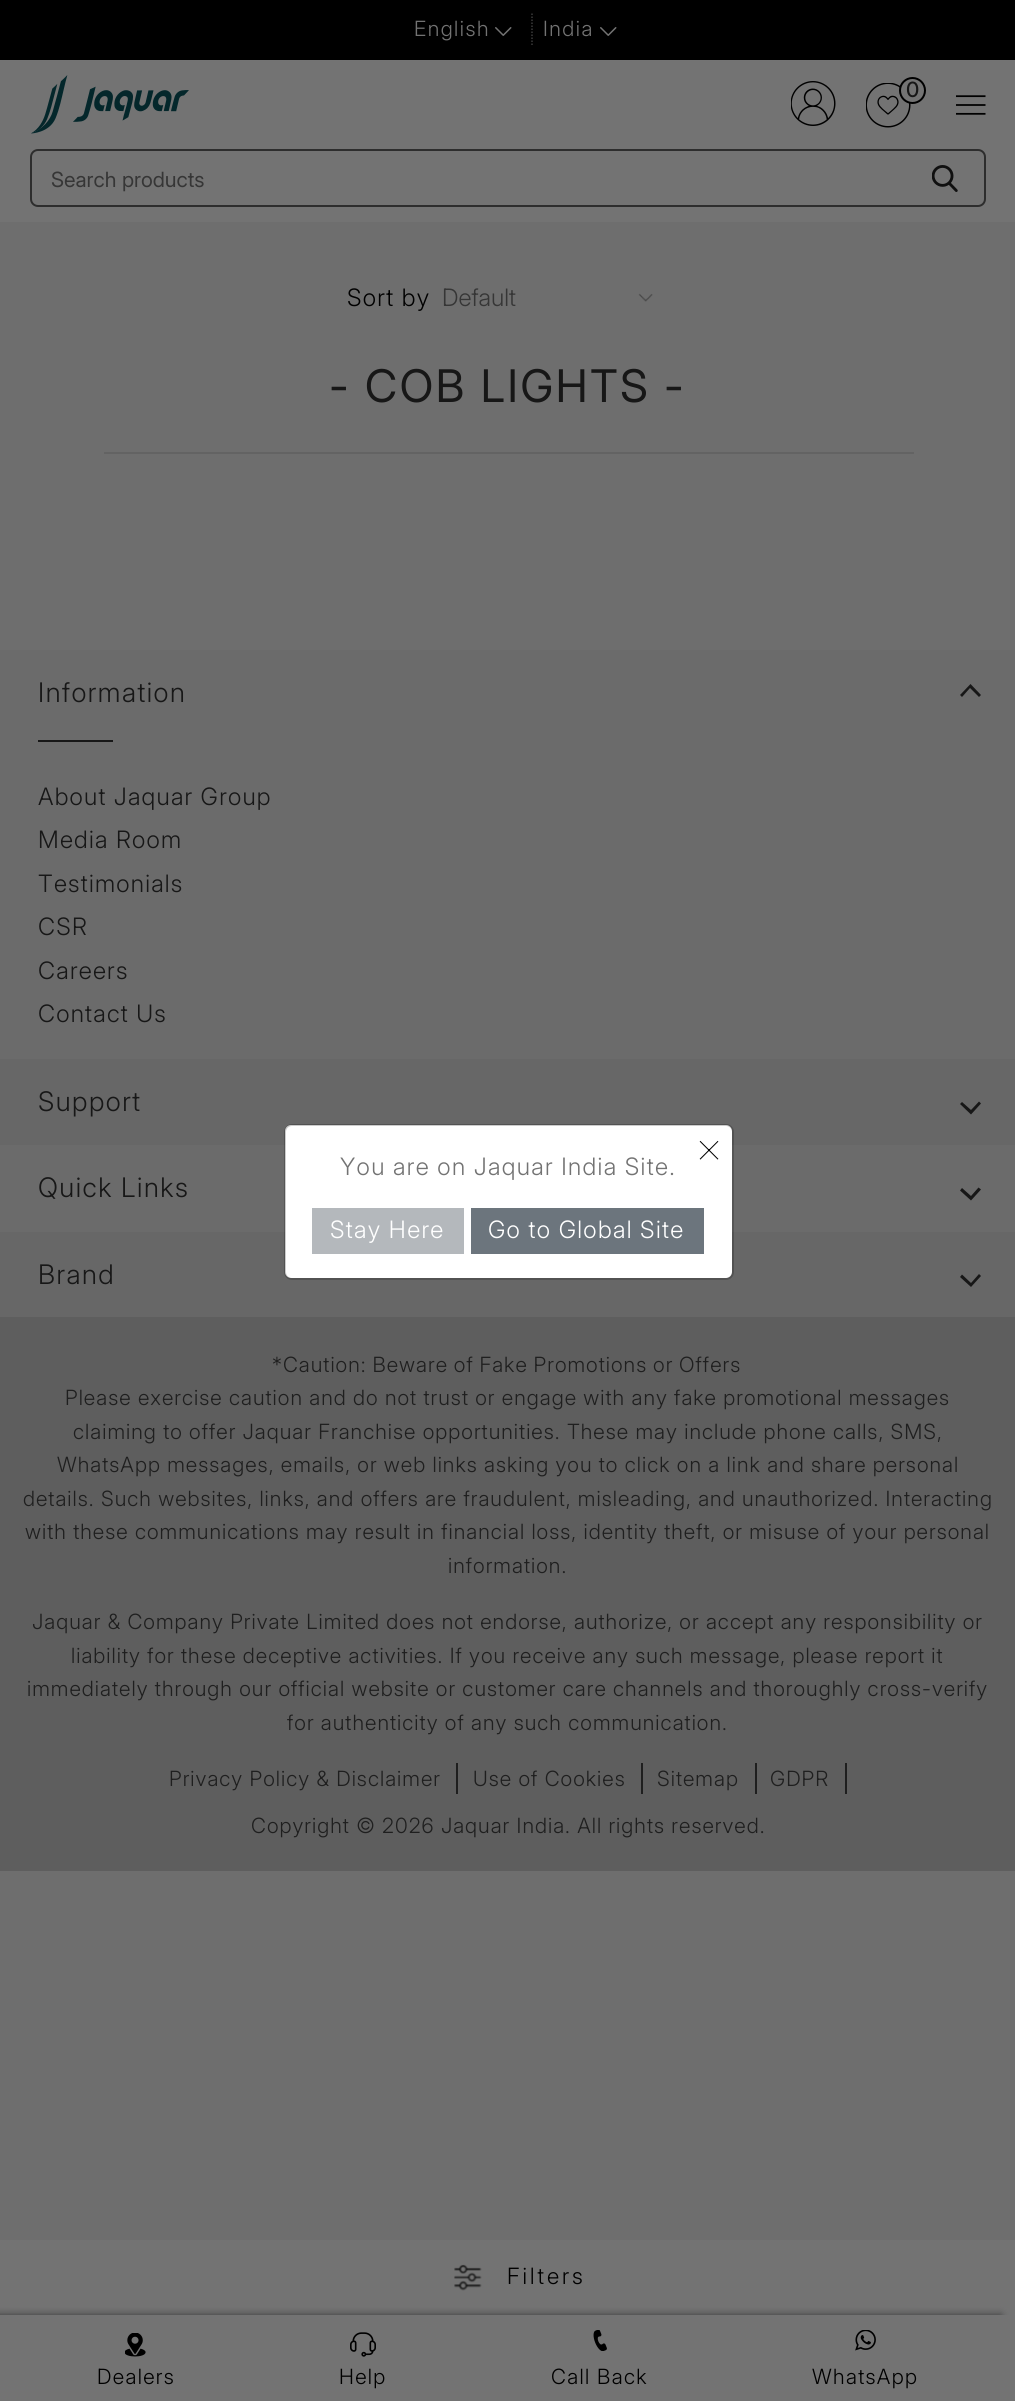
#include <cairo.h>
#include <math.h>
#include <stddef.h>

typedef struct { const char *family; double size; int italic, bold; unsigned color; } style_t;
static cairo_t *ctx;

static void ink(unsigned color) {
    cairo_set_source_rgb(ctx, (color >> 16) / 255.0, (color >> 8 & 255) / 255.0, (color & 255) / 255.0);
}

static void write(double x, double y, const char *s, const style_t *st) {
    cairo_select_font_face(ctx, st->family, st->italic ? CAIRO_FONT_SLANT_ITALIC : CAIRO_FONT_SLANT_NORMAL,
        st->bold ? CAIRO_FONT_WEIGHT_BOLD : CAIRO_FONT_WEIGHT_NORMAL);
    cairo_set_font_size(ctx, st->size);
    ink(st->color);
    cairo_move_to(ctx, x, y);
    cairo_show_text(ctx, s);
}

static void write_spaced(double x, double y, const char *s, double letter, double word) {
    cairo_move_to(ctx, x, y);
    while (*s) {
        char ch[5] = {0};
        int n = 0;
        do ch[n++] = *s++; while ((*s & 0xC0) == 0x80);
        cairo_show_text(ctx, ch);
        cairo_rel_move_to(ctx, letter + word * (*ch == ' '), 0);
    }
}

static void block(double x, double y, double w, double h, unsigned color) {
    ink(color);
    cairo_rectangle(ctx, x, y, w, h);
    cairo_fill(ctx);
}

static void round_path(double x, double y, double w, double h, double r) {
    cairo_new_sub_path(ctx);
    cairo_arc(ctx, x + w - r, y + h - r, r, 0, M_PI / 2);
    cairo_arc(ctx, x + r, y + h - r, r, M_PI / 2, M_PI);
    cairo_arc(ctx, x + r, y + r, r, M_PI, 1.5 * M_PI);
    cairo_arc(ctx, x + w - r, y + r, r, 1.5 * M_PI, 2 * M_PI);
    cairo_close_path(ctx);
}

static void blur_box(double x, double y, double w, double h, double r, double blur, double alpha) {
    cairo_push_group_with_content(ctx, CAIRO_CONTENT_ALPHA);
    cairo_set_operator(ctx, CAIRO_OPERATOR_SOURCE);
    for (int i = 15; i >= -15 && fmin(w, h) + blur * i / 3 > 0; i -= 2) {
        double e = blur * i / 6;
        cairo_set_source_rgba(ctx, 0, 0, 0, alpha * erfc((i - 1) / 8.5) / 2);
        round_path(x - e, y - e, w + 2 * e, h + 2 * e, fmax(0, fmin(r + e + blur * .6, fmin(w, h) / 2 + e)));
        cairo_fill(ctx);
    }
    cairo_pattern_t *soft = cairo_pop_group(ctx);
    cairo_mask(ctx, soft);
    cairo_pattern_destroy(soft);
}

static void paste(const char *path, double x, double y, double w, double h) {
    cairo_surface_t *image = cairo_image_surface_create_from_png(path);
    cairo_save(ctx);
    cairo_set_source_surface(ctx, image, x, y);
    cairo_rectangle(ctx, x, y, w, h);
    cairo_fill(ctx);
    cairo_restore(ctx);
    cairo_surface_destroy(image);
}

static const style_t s1 = {"Inter", 21, 0, 0, 0x363636};
static const style_t s2 = {"Inter Light", 24, 0, 0, 0x363636};
static const style_t s3 = {"Inter Thin", 45, 0, 0, 0x000000};

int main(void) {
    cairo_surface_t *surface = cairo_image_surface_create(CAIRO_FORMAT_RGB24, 1015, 2401);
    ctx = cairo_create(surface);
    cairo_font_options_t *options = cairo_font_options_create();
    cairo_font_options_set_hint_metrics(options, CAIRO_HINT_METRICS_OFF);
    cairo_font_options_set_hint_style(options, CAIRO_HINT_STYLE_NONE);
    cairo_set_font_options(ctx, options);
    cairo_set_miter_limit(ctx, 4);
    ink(0x6e6e6e);
    cairo_paint(ctx);
    block(0, 60, 1015, 162, 0x737373);
    block(0, 0, 1015, 60, 0x000000);
    paste("pic1.png", 495, 27, 17, 9);
    cairo_select_font_face(ctx, "Inter Light", CAIRO_FONT_SLANT_NORMAL, CAIRO_FONT_WEIGHT_NORMAL);
    cairo_set_font_size(ctx, 21);
    ink(0x737373);
    write_spaced(414, 36, "English", 1.5, 0);
    cairo_new_path(ctx);
    cairo_move_to(ctx, 532, 13.5);
    cairo_line_to(ctx, 532, 46.5);
    ink(0x3a3a3a);
    cairo_set_line_width(ctx, 1.5);
    cairo_set_dash(ctx, (double[]){1.5, 1.5}, 2, 0);
    cairo_stroke(ctx);
    paste("pic1.png", 600, 27, 17, 9);
    ink(0x737373);
    write_spaced(543, 36, "India", 1.5, 0);
    block(0, 2240, 1015, 75, 0x737373);
    ink(0x000000);
    blur_box(-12, 2315, 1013, 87, 0, 4, 0.5);
    block(0, 2315, 1015, 86, 0x737373);
    paste("pic2.png", 125, 2333, 21, 24);
    ink(0x000000);
    write_spaced(97, 2384, "Dealers", 1.35, 0);
    paste("pic3.png", 350, 2332, 26, 25);
    write_spaced(339, 2384, "Help", 1.35, 0);
    paste("pic4.png", 593, 2330, 14, 21);
    write_spaced(551, 2384, "Call Back", 1.35, 0);
    paste("pic5.png", 855, 2330, 21, 21);
    write_spaced(812, 2384, "WhatsApp", 1.35, 0);
    paste("pic6.png", 31, 75, 158, 59);
    paste("pic7.png", 791, 81, 45, 45);
    paste("pic8.png", 866, 83, 45, 45);
    ink(0x737373);
    cairo_arc(ctx, 912.5, 90.5, 12.5, 0, 2 * M_PI);
    cairo_fill_preserve(ctx);
    ink(0x000000);
    cairo_set_line_width(ctx, 2);
    cairo_set_dash(ctx, NULL, 0, 0);
    cairo_stroke(ctx);
    cairo_select_font_face(ctx, "Inter Medium", CAIRO_FONT_SLANT_NORMAL, CAIRO_FONT_WEIGHT_NORMAL);
    ink(0x171717);
    write_spaced(906, 97, "0", 1.35, 0);
    paste("pic9.png", 956, 95, 30, 20);
    round_path(31, 150, 954, 56, 7);
    ink(0x2d2d2d);
    cairo_stroke(ctx);
    write(51, 187, "Search products", &s1);
    paste("pic10.png", 932, 165, 26, 27);
    cairo_select_font_face(ctx, "Inter Light", CAIRO_FONT_SLANT_NORMAL, CAIRO_FONT_WEIGHT_NORMAL);
    cairo_set_font_size(ctx, 24);
    ink(0x000000);
    write_spaced(347, 306, "Sort by", 1.35, 0);
    paste("pic11.png", 638, 293, 15, 9);
    write(442, 306, "Default", &s2);
    paste("pic12.png", 454, 2264, 28, 27);
    cairo_set_font_size(ctx, 22.5);
    ink(0x000000);
    write_spaced(507, 2284, "Filters", 3, 0);
    block(104, 452, 810, 2, 0x636363);
    cairo_select_font_face(ctx, "Inter", CAIRO_FONT_SLANT_NORMAL, CAIRO_FONT_WEIGHT_NORMAL);
    cairo_set_font_size(ctx, 45);
    ink(0x171717);
    write_spaced(329, 402, "- COB LIGHTS -", 2.25, 0);
    block(0, 650, 1015, 582, 0x6b6b6b);
    cairo_select_font_face(ctx, "Inter Light", CAIRO_FONT_SLANT_NORMAL, CAIRO_FONT_WEIGHT_NORMAL);
    cairo_set_font_size(ctx, 27);
    ink(0x171717);
    write_spaced(38, 702, "Information", 1.5, 0);
    cairo_new_path(ctx);
    cairo_move_to(ctx, 960, 695);
    cairo_line_to(ctx, 962, 697);
    cairo_line_to(ctx, 970, 688);
    cairo_line_to(ctx, 979, 697);
    cairo_line_to(ctx, 981, 695);
    cairo_line_to(ctx, 970.5, 684);
    cairo_close_path(ctx);
    cairo_fill(ctx);
    block(38, 740, 75, 2, 0x171717);
    cairo_set_font_size(ctx, 24);
    write_spaced(38, 805, "About Jaquar Group", 1.25, 0);
    write_spaced(38, 848, "Media Room", 1.25, 0);
    write_spaced(38, 892, "Testimonials", 1.25, 0);
    write_spaced(38, 935, "CSR", 1.25, 0);
    write_spaced(38, 979, "Careers", 1.25, 0);
    write_spaced(38, 1022, "Contact Us", 1.25, 0);
    block(0, 1059, 1015, 86, 0x676767);
    cairo_set_font_size(ctx, 27);
    ink(0x171717);
    write_spaced(38, 1111, "Support", 1.5, 0);
    cairo_new_path(ctx);
    cairo_move_to(ctx, 981, 1103.5);
    cairo_line_to(ctx, 979, 1101.5);
    cairo_line_to(ctx, 971, 1110);
    cairo_line_to(ctx, 962, 1102);
    cairo_line_to(ctx, 960, 1104);
    cairo_line_to(ctx, 971, 1114.5);
    cairo_close_path(ctx);
    cairo_fill(ctx);
    write_spaced(38, 1197, "Quick Links", 1.5, 0);
    cairo_new_path(ctx);
    cairo_move_to(ctx, 981, 1189.5);
    cairo_line_to(ctx, 978.5, 1187.5);
    cairo_line_to(ctx, 971, 1196);
    cairo_line_to(ctx, 962, 1188);
    cairo_line_to(ctx, 960, 1190.5);
    cairo_line_to(ctx, 971, 1200.5);
    cairo_close_path(ctx);
    cairo_fill(ctx);
    block(0, 1232, 1015, 85, 0x676767);
    ink(0x171717);
    write_spaced(38, 1284, "Brand", 1.5, 0);
    cairo_new_path(ctx);
    cairo_move_to(ctx, 981, 1276);
    cairo_line_to(ctx, 979, 1274);
    cairo_line_to(ctx, 971, 1283);
    cairo_line_to(ctx, 962, 1274.5);
    cairo_line_to(ctx, 960, 1277);
    cairo_line_to(ctx, 971, 1287);
    cairo_close_path(ctx);
    cairo_fill(ctx);
    block(0, 1317, 1015, 554, 0x5e5e5e);
    cairo_set_font_size(ctx, 21);
    ink(0x1f1f1f);
    write_spaced(272, 1372, "*Caution: Beware of Fake Promotions or Offers", 1.05, -0.5);
    write_spaced(65, 1405, "Please exercise caution and do not trust or engage with any fake promotional messages", 1.05, 0);
    write_spaced(73, 1439, "claiming to offer Jaquar Franchise opportunities. These may include phone calls, SMS,", 1.05, 0);
    write_spaced(57, 1472, "WhatsApp messages, emails, or web links asking you to click on a link and share personal", 1.05, 0);
    write_spaced(23, 1506, "details. Such websites, links, and offers are fraudulent, misleading, and unauthorized. Interacting", 1.05, 0);
    write_spaced(25, 1539, "with these communications may result in financial loss, identity theft, or misuse of your personal", 1.05, 0);
    write_spaced(448, 1573, "information.", 1.05, 0);
    write_spaced(32, 1629, "Jaquar & Company Private Limited does not endorse, authorize, or accept any responsibility or", 1.05, 0);
    write_spaced(71, 1663, "liability for these deceptive activities. If you receive any such message, please report it", 1.05, 0);
    write_spaced(27, 1696, "immediately through our official website or customer care channels and thoroughly cross-verify", 1.05, 0);
    write_spaced(287, 1730, "for authenticity of any such communication.", 1.05, 0);
    block(456, 1763, 2, 31, 0x1f1f1f);
    write_spaced(169, 1786, "Privacy Policy & Disclaimer", 1.05, 0);
    block(641, 1763, 2, 31, 0x1f1f1f);
    write_spaced(473, 1786, "Use of Cookies", 1.05, 0);
    block(755, 1763, 2, 31, 0x1f1f1f);
    write_spaced(657, 1786, "Sitemap", 1.05, 0);
    block(845, 1763, 2, 31, 0x1f1f1f);
    write_spaced(770, 1786, "GDPR", 1.05, 0);
    write_spaced(251, 1833, "Copyright © 2026 Jaquar India. All rights reserved.", 1.05, 0);
    ink(0xffffff);
    round_path(285, 1125, 447, 153, 6);
    cairo_fill(ctx);
    round_path(285, 1125, 448, 154, 7);
    cairo_set_source_rgba(ctx, 0, 0, 0, 0.2);
    cairo_stroke(ctx);
    write(695, 1163, "×", &s3);
    cairo_select_font_face(ctx, "Inter Light", CAIRO_FONT_SLANT_NORMAL, CAIRO_FONT_WEIGHT_NORMAL);
    cairo_set_font_size(ctx, 24);
    ink(0x737373);
    write_spaced(340, 1175, "You are on Jaquar India Site.", 1.35, 0);
    block(312, 1208, 152, 46, 0xb4b8bc);
    ink(0xffffff);
    write_spaced(330, 1238, "Stay Here", 1.35, 0);
    block(471, 1208, 233, 46, 0x6c757d);
    ink(0xffffff);
    write_spaced(488, 1238, "Go to Global Site", 1.35, 0);
    cairo_surface_write_to_png(surface, "screenshot.png");
    cairo_font_options_destroy(options);
    cairo_destroy(ctx);
    cairo_surface_destroy(surface);
    return 0;
}
